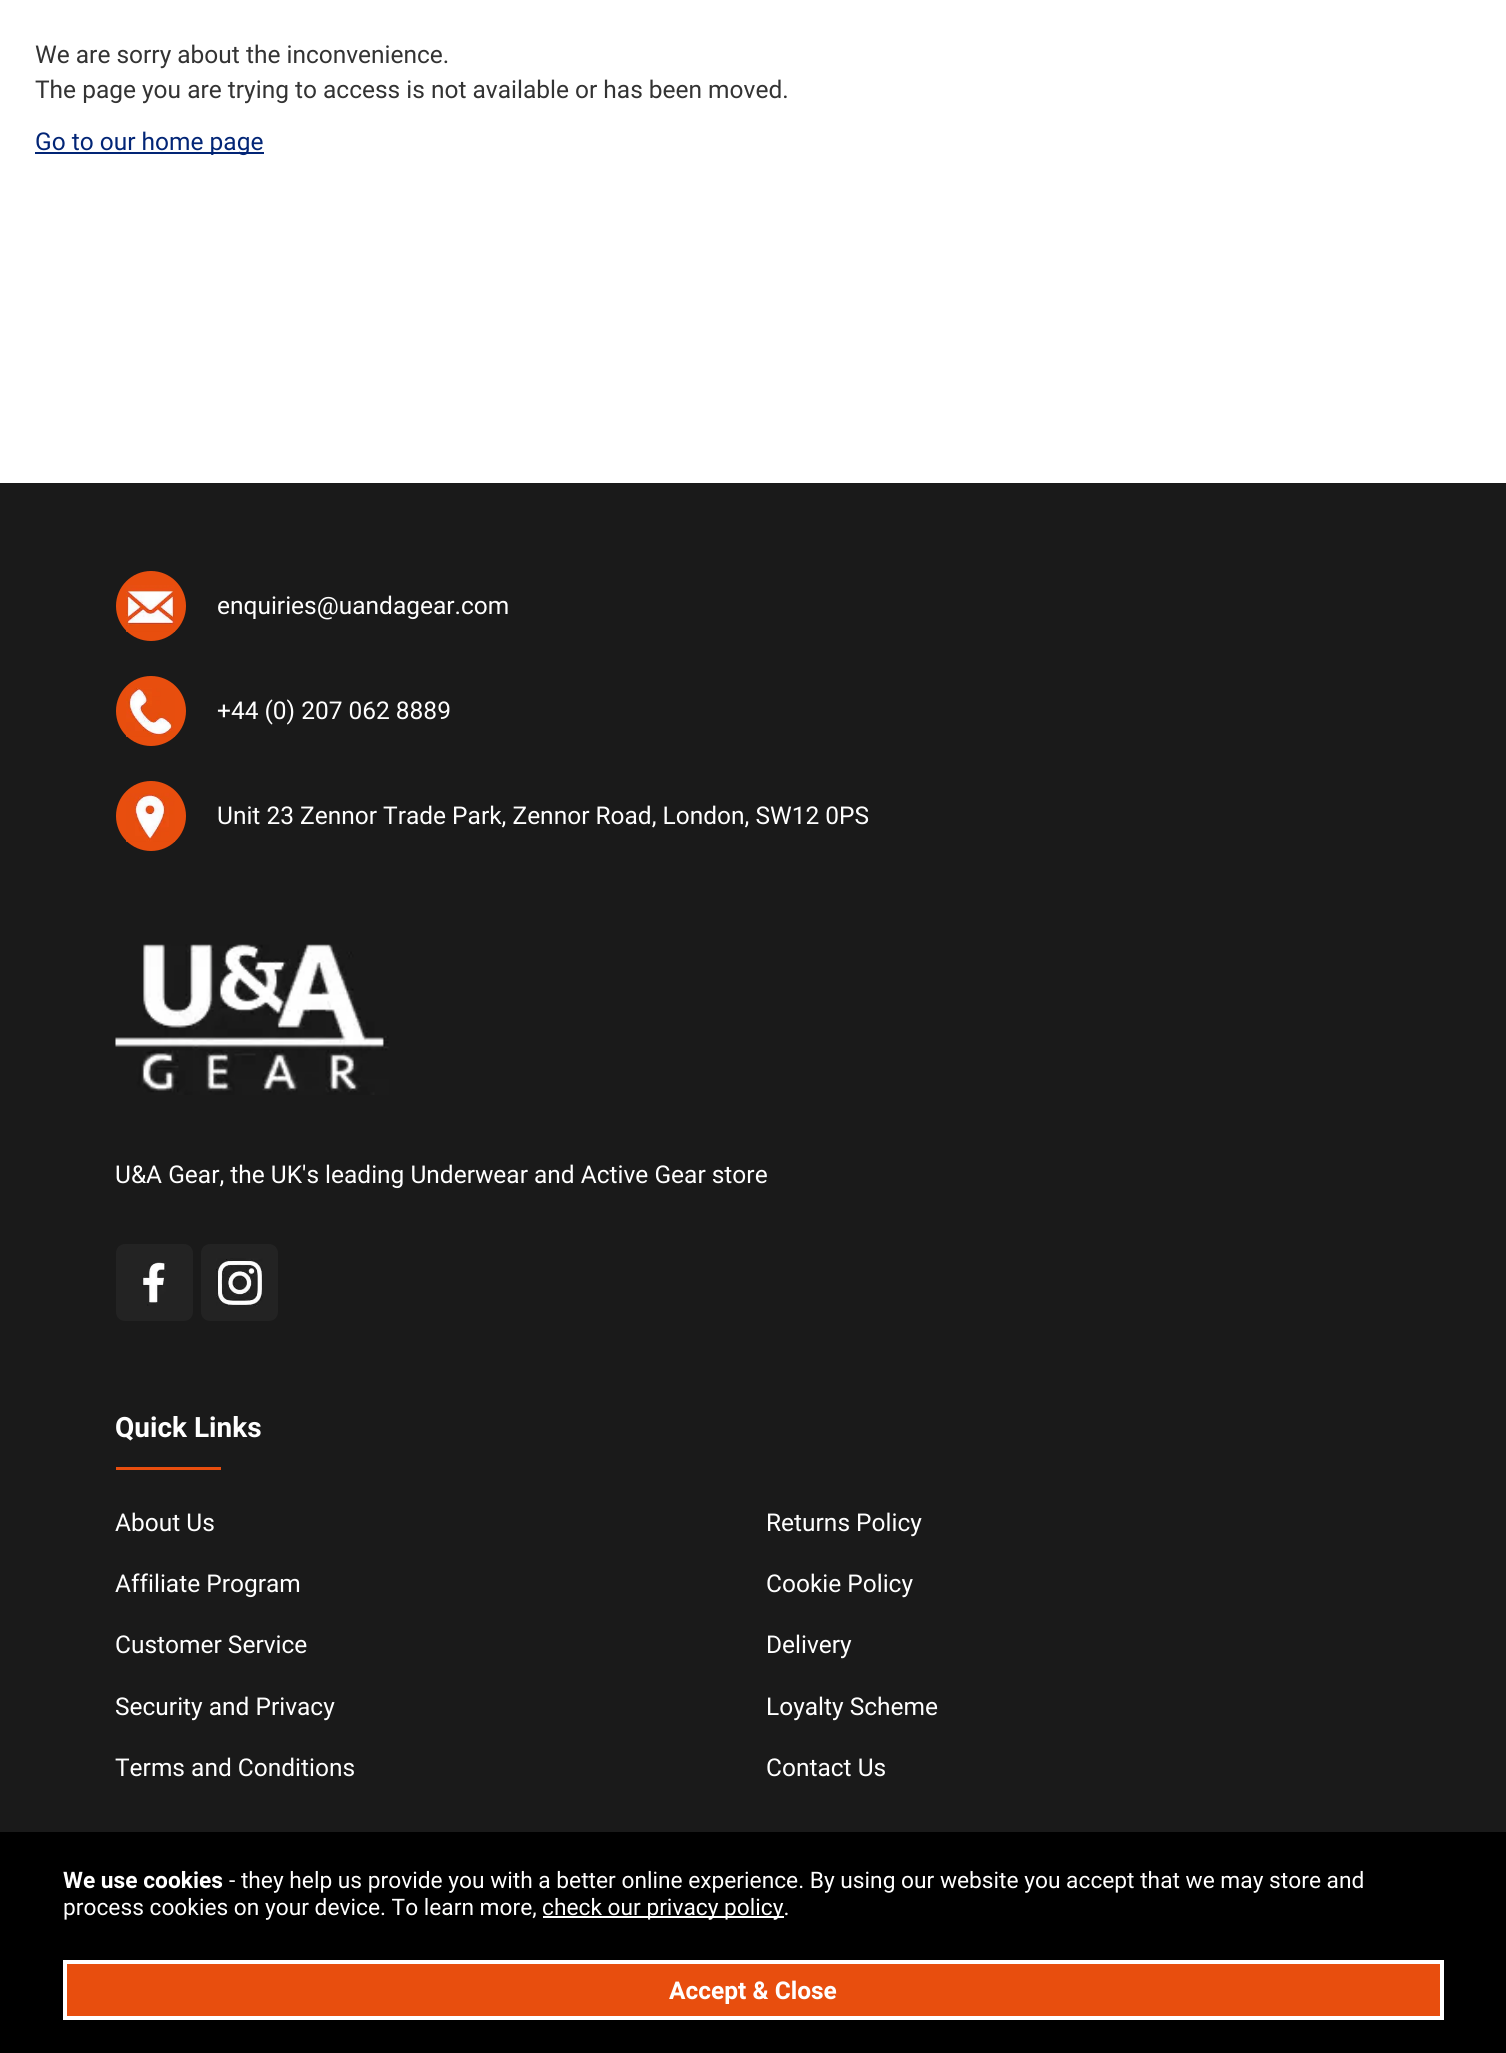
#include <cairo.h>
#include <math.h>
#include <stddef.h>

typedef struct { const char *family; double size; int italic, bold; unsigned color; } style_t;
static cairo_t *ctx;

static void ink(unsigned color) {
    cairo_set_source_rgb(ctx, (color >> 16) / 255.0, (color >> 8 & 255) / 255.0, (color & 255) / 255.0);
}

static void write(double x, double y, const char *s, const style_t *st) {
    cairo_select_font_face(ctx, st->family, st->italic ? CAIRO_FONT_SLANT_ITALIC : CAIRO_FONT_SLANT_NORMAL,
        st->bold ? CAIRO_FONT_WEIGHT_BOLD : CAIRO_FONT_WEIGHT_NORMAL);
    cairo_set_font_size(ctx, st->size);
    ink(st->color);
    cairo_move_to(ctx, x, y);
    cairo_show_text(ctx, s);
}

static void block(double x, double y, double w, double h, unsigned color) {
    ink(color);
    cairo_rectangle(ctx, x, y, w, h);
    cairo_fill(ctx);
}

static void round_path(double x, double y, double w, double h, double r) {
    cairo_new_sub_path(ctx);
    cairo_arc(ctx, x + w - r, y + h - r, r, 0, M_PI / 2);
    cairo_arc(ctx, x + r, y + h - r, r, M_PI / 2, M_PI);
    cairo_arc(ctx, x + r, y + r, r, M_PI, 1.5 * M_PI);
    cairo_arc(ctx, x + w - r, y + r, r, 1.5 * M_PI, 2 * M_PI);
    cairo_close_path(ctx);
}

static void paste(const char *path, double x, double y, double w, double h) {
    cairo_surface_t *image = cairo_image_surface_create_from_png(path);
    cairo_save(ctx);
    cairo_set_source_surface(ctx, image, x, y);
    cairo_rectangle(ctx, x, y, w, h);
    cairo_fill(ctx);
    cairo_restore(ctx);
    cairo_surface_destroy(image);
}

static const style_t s1 = {"Roboto", 24.5, 0, 0, 0x333333};
static const style_t s2 = {"Roboto", 24.5, 0, 0, 0x022576};
static const style_t s3 = {"Roboto", 24.5, 0, 0, 0xffffff};
static const style_t s4 = {"Roboto", 28, 0, 1, 0xffffff};
static const style_t s5 = {"Roboto", 22.75, 0, 1, 0xffffff};
static const style_t s6 = {"Roboto", 22.75, 0, 0, 0xffffff};
static const style_t s7 = {"Roboto", 24.5, 0, 1, 0xffffff};

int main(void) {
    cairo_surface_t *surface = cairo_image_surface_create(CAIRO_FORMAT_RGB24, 1506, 2053);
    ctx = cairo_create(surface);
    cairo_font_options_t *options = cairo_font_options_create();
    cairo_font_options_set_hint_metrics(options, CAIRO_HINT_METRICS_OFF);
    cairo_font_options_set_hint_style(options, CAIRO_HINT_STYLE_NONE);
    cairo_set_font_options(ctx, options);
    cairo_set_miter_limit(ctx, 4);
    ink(0xffffff);
    cairo_paint(ctx);
    write(35, 63, "We are sorry about the inconvenience.", &s1);
    write(35, 98, "The page you are trying to access is not available or has been moved.", &s1);
    block(35, 152, 229, 2, 0x022576);
    write(35, 150, "Go to our home page", &s2);
    block(0, 483, 1506, 1349, 0x1a1a1a);
    ink(0xe84e0e);
    cairo_new_path(ctx);
    cairo_arc(ctx, 151, 606, 35, 0, 2 * M_PI);
    cairo_fill(ctx);
    paste("pic1.png", 126, 585, 49, 47);
    write(217, 614, "enquiries@uandagear.com", &s3);
    ink(0xe84e0e);
    cairo_new_path(ctx);
    cairo_arc(ctx, 151, 711, 35, 0, 2 * M_PI);
    cairo_fill(ctx);
    paste("pic2.png", 126, 688, 49, 49);
    write(217, 719, "+44 (0) 207 062 8889", &s3);
    ink(0xe84e0e);
    cairo_new_path(ctx);
    cairo_arc(ctx, 151, 816, 35, 0, 2 * M_PI);
    cairo_fill(ctx);
    paste("pic3.png", 126, 793, 49, 49);
    write(217, 824, "Unit 23 Zennor Trade Park, Zennor Road, London, SW12 0PS", &s3);
    paste("pic4.png", 115, 944, 274, 151);
    write(115, 1183, "U&A Gear, the UK's leading Underwear and Active Gear store", &s3);
    ink(0x232323);
    round_path(116, 1244, 77, 77, 9);
    cairo_fill(ctx);
    paste("pic5.png", 142, 1262, 24, 44);
    round_path(201, 1244, 77, 77, 9);
    cairo_fill(ctx);
    paste("pic6.png", 216, 1258, 47, 48);
    cairo_save(ctx);
    cairo_rectangle(ctx, 116, 1409, 1277, 61);
    cairo_clip(ctx);
    write(115, 1437, "Quick Links", &s4);
    cairo_restore(ctx);
    block(116, 1467, 105, 3, 0xe84e0e);
    write(115, 1531, "About Us", &s3);
    write(766, 1531, "Returns Policy", &s3);
    write(115, 1592, "Affiliate Program", &s3);
    write(766, 1592, "Cookie Policy", &s3);
    write(115, 1653, "Customer Service", &s3);
    write(766, 1653, "Delivery", &s3);
    write(115, 1715, "Security and Privacy", &s3);
    write(766, 1715, "Loyalty Scheme", &s3);
    write(115, 1776, "Terms and Conditions", &s3);
    write(766, 1776, "Contact Us", &s3);
    block(0, 1832, 1506, 221, 0x000000);
    write(63, 1888, "We use cookies", &s5);
    write(229, 1888, "- they help us provide you with a better online experience. By using our website you accept that we may store and", &s6);
    write(63, 1915, "process cookies on your device. To learn more,", &s6);
    block(543, 1916, 241, 2, 0xffffff);
    write(542, 1915, "check our privacy policy.", &s6);
    ink(0xe84e0e);
    cairo_rectangle(ctx, 65, 1962, 1377, 56);
    cairo_fill_preserve(ctx);
    ink(0xffffff);
    cairo_set_line_width(ctx, 4);
    cairo_stroke(ctx);
    write(669, 1999, "Accept & Close", &s7);
    cairo_surface_write_to_png(surface, "screenshot.png");
    cairo_font_options_destroy(options);
    cairo_destroy(ctx);
    cairo_surface_destroy(surface);
    return 0;
}
